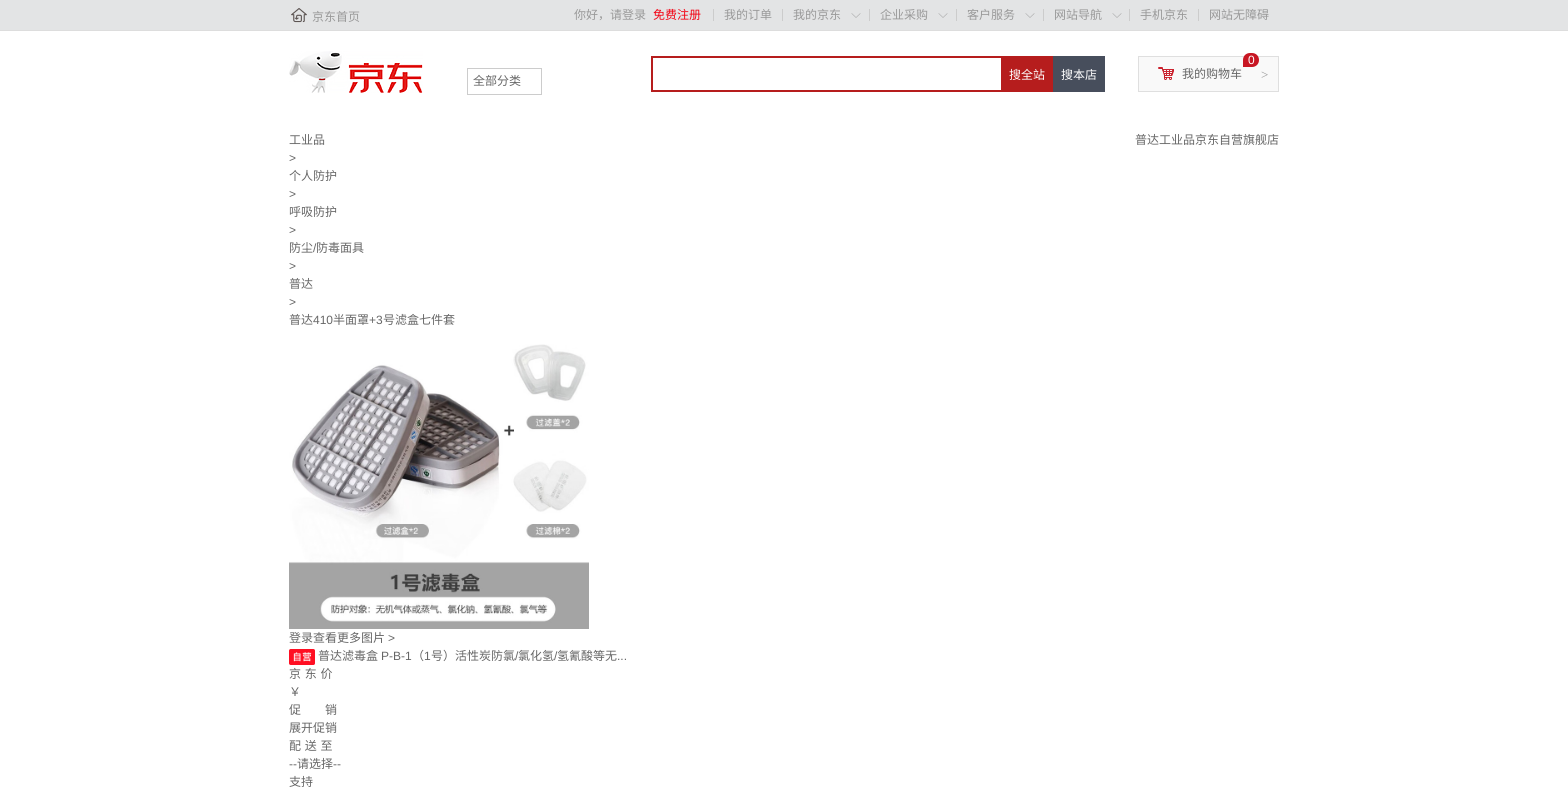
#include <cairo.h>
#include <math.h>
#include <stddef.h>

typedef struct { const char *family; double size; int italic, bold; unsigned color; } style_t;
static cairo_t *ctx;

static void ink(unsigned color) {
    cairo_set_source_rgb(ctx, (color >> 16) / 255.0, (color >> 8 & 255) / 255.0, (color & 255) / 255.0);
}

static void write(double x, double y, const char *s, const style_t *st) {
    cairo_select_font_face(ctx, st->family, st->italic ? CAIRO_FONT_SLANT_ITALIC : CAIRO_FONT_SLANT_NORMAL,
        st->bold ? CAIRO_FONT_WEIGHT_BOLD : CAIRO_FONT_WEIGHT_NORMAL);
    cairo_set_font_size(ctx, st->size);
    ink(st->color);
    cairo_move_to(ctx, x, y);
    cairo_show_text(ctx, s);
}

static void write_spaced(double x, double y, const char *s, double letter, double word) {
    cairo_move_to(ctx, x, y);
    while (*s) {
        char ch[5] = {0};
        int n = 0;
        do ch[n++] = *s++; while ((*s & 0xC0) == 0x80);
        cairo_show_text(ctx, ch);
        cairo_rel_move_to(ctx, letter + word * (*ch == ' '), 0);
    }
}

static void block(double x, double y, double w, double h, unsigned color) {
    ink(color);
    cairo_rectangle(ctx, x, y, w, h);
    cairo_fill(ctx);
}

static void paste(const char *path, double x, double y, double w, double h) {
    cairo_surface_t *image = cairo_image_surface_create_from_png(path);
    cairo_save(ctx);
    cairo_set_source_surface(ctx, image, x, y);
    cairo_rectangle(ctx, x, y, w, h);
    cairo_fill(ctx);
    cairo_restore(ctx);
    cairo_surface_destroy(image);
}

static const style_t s1 = {"Noto Sans CJK SC", 12, 0, 0, 0x999999};
static const style_t s2 = {"Noto Sans CJK SC", 12, 0, 0, 0xf30213};
static const style_t s3 = {"Noto Sans CJK SC", 12, 0, 0, 0x666666};
static const style_t s4 = {"Noto Sans CJK SC", 12, 0, 0, 0xffffff};
static const style_t s5 = {"Liberation Sans", 12, 0, 0, 0xffffff};
static const style_t s6 = {"Liberation Serif", 13, 0, 0, 0x999999};
static const style_t s7 = {"Liberation Sans", 12, 0, 0, 0x666666};

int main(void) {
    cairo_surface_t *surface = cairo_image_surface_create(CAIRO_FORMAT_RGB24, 1568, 801);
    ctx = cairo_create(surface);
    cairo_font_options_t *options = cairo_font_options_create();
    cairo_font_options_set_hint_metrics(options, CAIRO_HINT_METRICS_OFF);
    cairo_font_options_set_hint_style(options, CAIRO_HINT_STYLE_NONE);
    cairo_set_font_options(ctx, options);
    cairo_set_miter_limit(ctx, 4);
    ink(0xffffff);
    cairo_paint(ctx);
    block(0, 0, 1568, 30, 0xe3e4e5);
    block(0, 30, 1568, 1, 0xdddddd);
    paste("pic1.png", 291, 8, 16, 15);
    write(312, 21, "京东首页", &s1);
    write(574, 19, "你好，请登录", &s1);
    write(653, 19, "免费注册", &s2);
    block(713, 9, 1, 12, 0xcccccc);
    write(724, 19, "我的订单", &s1);
    block(782, 9, 1, 12, 0xcccccc);
    write(793, 19, "我的京东", &s1);
    paste("pic2.png", 851, 13, 10, 5);
    block(869, 9, 1, 12, 0xcccccc);
    write(880, 19, "企业采购", &s1);
    paste("pic2.png", 938, 13, 10, 5);
    block(956, 9, 1, 12, 0xcccccc);
    write(967, 19, "客户服务", &s1);
    paste("pic2.png", 1025, 13, 10, 5);
    block(1043, 9, 1, 12, 0xcccccc);
    write(1054, 19, "网站导航", &s1);
    paste("pic2.png", 1112, 13, 10, 5);
    block(1129, 9, 1, 12, 0xcccccc);
    write(1140, 19, "手机京东", &s1);
    block(1198, 9, 1, 12, 0xcccccc);
    write(1209, 19, "网站无障碍", &s1);
    paste("pic3.png", 289, 51, 134, 42);
    cairo_rectangle(ctx, 467.5, 68.5, 74, 26);
    ink(0xcccccc);
    cairo_set_line_width(ctx, 1);
    cairo_stroke(ctx);
    write(473, 85, "全部分类", &s3);
    block(651, 56, 350, 2, 0xb61d1d);
    block(651, 90, 350, 2, 0xb61d1d);
    block(651, 56, 2, 36, 0xb61d1d);
    block(1001, 56, 52, 36, 0xb61d1d);
    write(1009, 79, "搜全站", &s4);
    block(1053, 56, 52, 36, 0x474e5c);
    write(1061, 79, "搜本店", &s4);
    ink(0xf9f9f9);
    cairo_rectangle(ctx, 1138.5, 56.5, 140, 35);
    cairo_fill_preserve(ctx);
    ink(0xdfdfdf);
    cairo_stroke(ctx);
    ink(0xc81623);
    cairo_new_path(ctx);
    cairo_move_to(ctx, 1250, 53);
    cairo_line_to(ctx, 1252, 53);
    cairo_curve_to(ctx, 1256, 53, 1259, 56, 1259, 60);
    cairo_curve_to(ctx, 1259, 64, 1256, 67, 1252, 67);
    cairo_line_to(ctx, 1243, 67);
    cairo_line_to(ctx, 1243, 60);
    cairo_curve_to(ctx, 1243, 56, 1246, 53, 1250, 53);
    cairo_close_path(ctx);
    cairo_fill(ctx);
    write(1248, 64, "0", &s5);
    paste("pic4.png", 1158, 67, 16, 13);
    write(1182, 78, "我的购物车", &s3);
    write(1261, 79, ">", &s6);
    write(289, 144, "工业品", &s3);
    write(289, 162, ">", &s7);
    write(289, 180, "个人防护", &s3);
    write(289, 198, ">", &s7);
    write(289, 216, "呼吸防护", &s3);
    write(289, 234, ">", &s7);
    write(289, 252, "防尘", &s3);
    write(313, 252, "/", &s7);
    write(316, 252, "防毒面具", &s3);
    write(289, 270, ">", &s7);
    write(289, 288, "普达", &s3);
    write(289, 306, ">", &s7);
    write(289, 324, "普达", &s3);
    write(313, 324, "410", &s7);
    write(333, 324, "半面罩", &s3);
    write(369, 324, "+3", &s7);
    write(383, 324, "号滤盒七件套", &s3);
    write(1135, 144, "普达工业品京东自营旗舰店", &s3);
    paste("pic5.png", 289, 344, 300, 285);
    write(289, 642, "登录查看更多图片", &s3);
    write(388, 642, ">", &s7);
    paste("pic6.png", 289, 649, 26, 16);
    write(318, 660, "普达滤毒盒", &s3);
    write(381, 660, "P-B-1", &s7);
    write(412, 660, "（", &s3);
    write(424, 660, "1", &s7);
    write(431, 660, "号）活性炭防氯", &s3);
    write(515, 660, "/", &s7);
    write(518, 660, "氯化氢", &s3);
    write(554, 660, "/", &s7);
    write(557, 660, "氢氰酸等无", &s3);
    write(617, 660, "...", &s7);
    cairo_select_font_face(ctx, "Noto Sans CJK SC", CAIRO_FONT_SLANT_NORMAL, CAIRO_FONT_WEIGHT_NORMAL);
    write_spaced(289, 678, "京 东 价", 0, 1);
    write(289, 696, "￥", &s3);
    write(289, 714, "促　　销", &s3);
    write(289, 732, "展开促销", &s3);
    write_spaced(289, 750, "配 送 至", 0, 1);
    write(289, 768, "--", &s7);
    write(297, 768, "请选择", &s3);
    write(333, 768, "--", &s7);
    write(289, 786, "支持", &s3);
    cairo_surface_write_to_png(surface, "screenshot.png");
    cairo_font_options_destroy(options);
    cairo_destroy(ctx);
    cairo_surface_destroy(surface);
    return 0;
}
